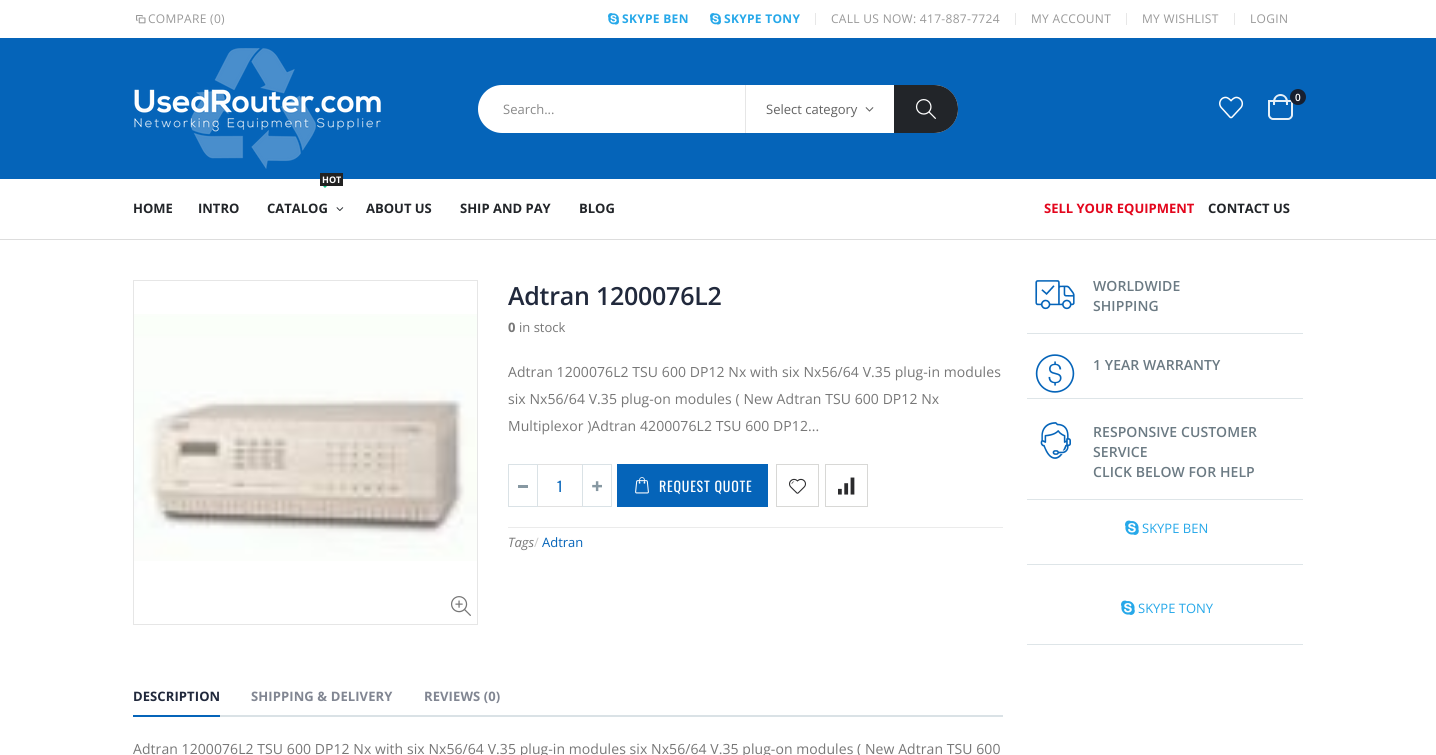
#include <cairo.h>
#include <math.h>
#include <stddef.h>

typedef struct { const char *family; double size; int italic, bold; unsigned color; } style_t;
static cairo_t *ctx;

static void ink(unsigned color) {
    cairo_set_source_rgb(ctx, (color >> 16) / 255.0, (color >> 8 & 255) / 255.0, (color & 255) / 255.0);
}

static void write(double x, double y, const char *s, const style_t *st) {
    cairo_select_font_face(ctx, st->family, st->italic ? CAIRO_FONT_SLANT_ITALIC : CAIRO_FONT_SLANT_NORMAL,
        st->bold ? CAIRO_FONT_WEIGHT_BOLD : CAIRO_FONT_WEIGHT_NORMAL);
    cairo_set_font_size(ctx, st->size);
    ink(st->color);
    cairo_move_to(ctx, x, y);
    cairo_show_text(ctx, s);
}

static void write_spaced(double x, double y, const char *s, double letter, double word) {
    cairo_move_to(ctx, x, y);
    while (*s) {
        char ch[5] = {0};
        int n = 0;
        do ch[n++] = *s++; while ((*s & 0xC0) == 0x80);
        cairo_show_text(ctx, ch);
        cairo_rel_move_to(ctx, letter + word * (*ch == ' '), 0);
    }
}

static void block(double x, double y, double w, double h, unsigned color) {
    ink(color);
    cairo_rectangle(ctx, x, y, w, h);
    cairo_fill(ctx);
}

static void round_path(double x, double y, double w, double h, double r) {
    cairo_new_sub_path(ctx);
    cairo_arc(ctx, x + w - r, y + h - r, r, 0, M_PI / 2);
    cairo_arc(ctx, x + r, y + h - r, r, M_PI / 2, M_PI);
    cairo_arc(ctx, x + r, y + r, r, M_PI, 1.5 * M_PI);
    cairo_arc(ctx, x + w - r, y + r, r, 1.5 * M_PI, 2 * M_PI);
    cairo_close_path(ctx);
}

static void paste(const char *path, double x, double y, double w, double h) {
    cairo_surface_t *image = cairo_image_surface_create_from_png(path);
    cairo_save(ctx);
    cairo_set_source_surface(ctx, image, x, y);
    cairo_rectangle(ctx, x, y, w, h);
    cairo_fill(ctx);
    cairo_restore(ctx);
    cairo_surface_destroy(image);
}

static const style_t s1 = {"Open Sans SemiBold", 10, 0, 0, 0xffffff};
static const style_t s2 = {"Open Sans", 13, 0, 0, 0x898989};
static const style_t s3 = {"Open Sans", 13, 0, 0, 0x626262};
static const style_t s4 = {"Open Sans", 13, 0, 1, 0x222529};
static const style_t s5 = {"Open Sans", 9, 0, 1, 0xffffff};
static const style_t s6 = {"Open Sans", 13, 0, 1, 0xe3061d};
static const style_t s7 = {"Open Sans", 13, 0, 1, 0x777777};
static const style_t s8 = {"Open Sans", 13, 0, 0, 0x777777};
static const style_t s9 = {"Oswald", 14, 0, 0, 0x0564b9};
static const style_t s10 = {"Open Sans", 13, 1, 0, 0x777777};
static const style_t s11 = {"Open Sans", 13, 0, 0, 0xcacaca};
static const style_t s12 = {"Open Sans", 13, 0, 0, 0x0564b9};
static const style_t s13 = {"Open Sans", 13, 0, 0, 0x26a8e9};

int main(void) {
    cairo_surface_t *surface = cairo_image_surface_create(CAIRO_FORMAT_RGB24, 1436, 755);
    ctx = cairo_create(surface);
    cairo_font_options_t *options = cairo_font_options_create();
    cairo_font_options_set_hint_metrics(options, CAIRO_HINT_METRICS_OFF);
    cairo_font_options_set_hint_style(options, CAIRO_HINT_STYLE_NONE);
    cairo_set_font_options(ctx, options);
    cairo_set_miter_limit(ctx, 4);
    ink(0xffffff);
    cairo_paint(ctx);
    block(0, 38, 1436, 141, 0x0564b9);
    paste("pic1.png", 136, 15, 10, 9);
    cairo_select_font_face(ctx, "Open Sans", CAIRO_FONT_SLANT_NORMAL, CAIRO_FONT_WEIGHT_NORMAL);
    cairo_set_font_size(ctx, 12);
    ink(0x999999);
    write_spaced(148, 23, "COMPARE (0)", 0.3, 0);
    paste("pic2.png", 608, 13, 11, 12);
    cairo_select_font_face(ctx, "Open Sans", CAIRO_FONT_SLANT_NORMAL, CAIRO_FONT_WEIGHT_BOLD);
    ink(0x26a8e9);
    write_spaced(622, 23, "SKYPE BEN", 0.3, 0);
    paste("pic2.png", 710, 13, 11, 12);
    write_spaced(724, 23, "SKYPE TONY", 0.3, 0);
    block(815, 13, 1, 12, 0xe7e7e7);
    cairo_select_font_face(ctx, "Open Sans", CAIRO_FONT_SLANT_NORMAL, CAIRO_FONT_WEIGHT_NORMAL);
    ink(0x999999);
    write_spaced(831, 23, "CALL US NOW: 417-887-7724", 0.3, 0);
    block(1015, 13, 1, 12, 0xe7e7e7);
    ink(0x999999);
    write_spaced(1031, 23, "MY ACCOUNT", 0.3, 0);
    block(1126, 13, 1, 12, 0xe7e7e7);
    ink(0x999999);
    write_spaced(1142, 23, "MY WISHLIST", 0.3, 0);
    block(1234, 13, 1, 12, 0xe7e7e7);
    ink(0x999999);
    write_spaced(1250, 23, "LOGIN", 0.3, 0);
    paste("pic3.png", 134, 48, 247, 121);
    paste("pic4.png", 1219, 96, 25, 23);
    cairo_new_path(ctx);
    cairo_move_to(ctx, 1269, 101);
    cairo_line_to(ctx, 1292, 101);
    cairo_line_to(ctx, 1292, 115);
    cairo_curve_to(ctx, 1292, 117, 1290, 119, 1288, 119);
    cairo_line_to(ctx, 1273, 119);
    cairo_curve_to(ctx, 1271, 119, 1269, 117, 1269, 115);
    cairo_close_path(ctx);
    ink(0xe6f0f8);
    cairo_stroke(ctx);
    cairo_set_fill_rule(ctx, CAIRO_FILL_RULE_EVEN_ODD);
    cairo_new_path(ctx);
    cairo_move_to(ctx, 1280.5, 94);
    cairo_curve_to(ctx, 1284.5, 94, 1288, 97.5, 1288, 101.5);
    cairo_line_to(ctx, 1288, 105);
    cairo_line_to(ctx, 1273, 105);
    cairo_line_to(ctx, 1273, 101.5);
    cairo_curve_to(ctx, 1273, 97.5, 1276.5, 94, 1280.5, 94);
    cairo_close_path(ctx);
    cairo_move_to(ctx, 1280.5, 96);
    cairo_curve_to(ctx, 1286, 96, 1286, 101, 1286, 105);
    cairo_line_to(ctx, 1275, 105);
    cairo_curve_to(ctx, 1275, 101, 1275, 96, 1280.5, 96);
    cairo_close_path(ctx);
    cairo_fill(ctx);
    ink(0x171f2f);
    cairo_arc(ctx, 1298, 97, 8, 0, 2 * M_PI);
    cairo_fill(ctx);
    write(1295, 101, "0", &s1);
    round_path(478, 85, 480, 48, 24);
    cairo_fill(ctx);
    write(503, 114, "Search...", &s2);
    block(745, 85, 1, 48, 0xe6e6e6);
    write(766, 114, "Select category", &s3);
    paste("pic5.png", 865, 107, 9, 5);
    ink(0x222529);
    cairo_new_path(ctx);
    cairo_move_to(ctx, 894, 85);
    cairo_line_to(ctx, 934, 85);
    cairo_curve_to(ctx, 947.5, 85, 958, 95.5, 958, 109);
    cairo_curve_to(ctx, 958, 122.5, 947.5, 133, 934, 133);
    cairo_line_to(ctx, 894, 133);
    cairo_close_path(ctx);
    cairo_fill(ctx);
    paste("pic6.png", 915, 99, 21, 20);
    block(0, 239, 1436, 1, 0xdddddd);
    write(133, 213, "HOME", &s4);
    write(198, 213, "INTRO", &s4);
    block(320, 173, 23, 13, 0x222222);
    write(322, 183, "HOT", &s5);
    ink(0x0cc485);
    cairo_set_fill_rule(ctx, CAIRO_FILL_RULE_WINDING);
    cairo_new_path(ctx);
    cairo_move_to(ctx, 323, 186);
    cairo_line_to(ctx, 327, 186);
    cairo_line_to(ctx, 325, 188);
    cairo_close_path(ctx);
    cairo_fill(ctx);
    write(267, 213, "CATALOG", &s4);
    paste("pic7.png", 336, 207, 8, 4);
    write(366, 213, "ABOUT US", &s4);
    write(460, 213, "SHIP AND PAY", &s4);
    write(579, 213, "BLOG", &s4);
    write(1044, 213, "SELL YOUR EQUIPMENT", &s6);
    write(1208, 213, "CONTACT US", &s4);
    cairo_rectangle(ctx, 133.5, 280.5, 344, 344);
    ink(0xe6e6e6);
    cairo_set_line_width(ctx, 1);
    cairo_stroke(ctx);
    paste("pic8.png", 134, 314, 343, 247);
    paste("pic9.png", 451, 596, 20, 20);
    cairo_select_font_face(ctx, "Open Sans SemiBold", CAIRO_FONT_SLANT_NORMAL, CAIRO_FONT_WEIGHT_NORMAL);
    cairo_set_font_size(ctx, 25);
    ink(0x21293c);
    write_spaced(508, 305, "Adtran 1200076L2", -0.25, 0);
    write(508, 332, "0", &s7);
    write(519, 332, "in stock", &s8);
    cairo_set_font_size(ctx, 14);
    write_spaced(508, 377, "Adtran 1200076L2 TSU 600 DP12 Nx with six Nx56/64 V.35 plug-in modules", 0.07, 0);
    write_spaced(508, 404, "six Nx56/64 V.35 plug-on modules ( New Adtran TSU 600 DP12 Nx", 0.07, 0);
    write_spaced(508, 431, "Multiplexor )Adtran 4200076L2 TSU 600 DP12...", 0.07, 0);
    block(508, 527, 495, 1, 0xebebeb);
    cairo_rectangle(ctx, 537.5, 464.5, 45, 42);
    ink(0xe1e1e1);
    cairo_stroke(ctx);
    cairo_rectangle(ctx, 508.5, 464.5, 29, 42);
    ink(0xdae2e6);
    cairo_stroke(ctx);
    block(518, 485, 10, 3, 0x8798a2);
    cairo_rectangle(ctx, 582.5, 464.5, 29, 42);
    ink(0xdae2e6);
    cairo_stroke(ctx);
    paste("pic10.png", 592, 481, 10, 11);
    write(557, 492, "1", &s9);
    block(617, 464, 151, 43, 0x0564b9);
    paste("pic11.png", 635, 477, 14, 17);
    ink(0xffffff);
    write_spaced(659, 492, "REQUEST QUOTE", 0.75, 0);
    cairo_rectangle(ctx, 776.5, 464.5, 42, 42);
    ink(0xd8d8d6);
    cairo_stroke(ctx);
    paste("pic12.png", 789, 478, 17, 16);
    cairo_rectangle(ctx, 825.5, 464.5, 42, 42);
    cairo_stroke(ctx);
    paste("pic13.png", 838, 477, 17, 18);
    write(508, 547, "Tags", &s10);
    write(534, 547, "/", &s11);
    write(542, 547, "Adtran", &s12);
    block(220, 715, 783, 2, 0xdae2e6);
    block(133, 715, 87, 2, 0x0564b9);
    cairo_select_font_face(ctx, "Open Sans", CAIRO_FONT_SLANT_NORMAL, CAIRO_FONT_WEIGHT_BOLD);
    ink(0x21293c);
    write_spaced(133, 701, "DESCRIPTION", 0.1, 0);
    ink(0x818692);
    write_spaced(251, 701, "SHIPPING & DELIVERY", 0.1, 0);
    write_spaced(424, 701, "REVIEWS (0)", 0.1, 0);
    cairo_select_font_face(ctx, "Open Sans", CAIRO_FONT_SLANT_NORMAL, CAIRO_FONT_WEIGHT_NORMAL);
    cairo_set_font_size(ctx, 14);
    ink(0x777777);
    write_spaced(133, 754, "Adtran 1200076L2 TSU 600 DP12 Nx with six Nx56/64 V.35 plug-in modules six Nx56/64 V.35 plug-on modules ( New Adtran TSU 600", 0.07, 0);
    block(1027, 333, 276, 1, 0xdee5e8);
    paste("pic14.png", 1035, 280, 40, 30);
    cairo_select_font_face(ctx, "Open Sans SemiBold", CAIRO_FONT_SLANT_NORMAL, CAIRO_FONT_WEIGHT_NORMAL);
    ink(0x6b7a83);
    write_spaced(1093, 291, "WORLDWIDE", 0.07, 0);
    write_spaced(1093, 311, "SHIPPING", 0.07, 0);
    block(1027, 398, 276, 1, 0xdee5e8);
    paste("pic15.png", 1035, 354, 40, 39);
    ink(0x6b7a83);
    write_spaced(1093, 370, "1 YEAR WARRANTY", 0.07, 0);
    block(1027, 499, 276, 1, 0xdee5e8);
    paste("pic16.png", 1040, 422, 31, 37);
    ink(0x6b7a83);
    write_spaced(1093, 437, "RESPONSIVE CUSTOMER", 0.07, 0);
    write_spaced(1093, 457, "SERVICE", 0.07, 0);
    write_spaced(1093, 477, "CLICK BELOW FOR HELP", 0.07, 0);
    block(1027, 564, 276, 1, 0xdee5e8);
    paste("pic17.png", 1125, 520, 14, 15);
    write(1142, 533, "SKYPE BEN", &s13);
    block(1027, 644, 276, 1, 0xdee5e8);
    paste("pic17.png", 1121, 600, 14, 15);
    write(1138, 613, "SKYPE TONY", &s13);
    cairo_surface_write_to_png(surface, "screenshot.png");
    cairo_font_options_destroy(options);
    cairo_destroy(ctx);
    cairo_surface_destroy(surface);
    return 0;
}
